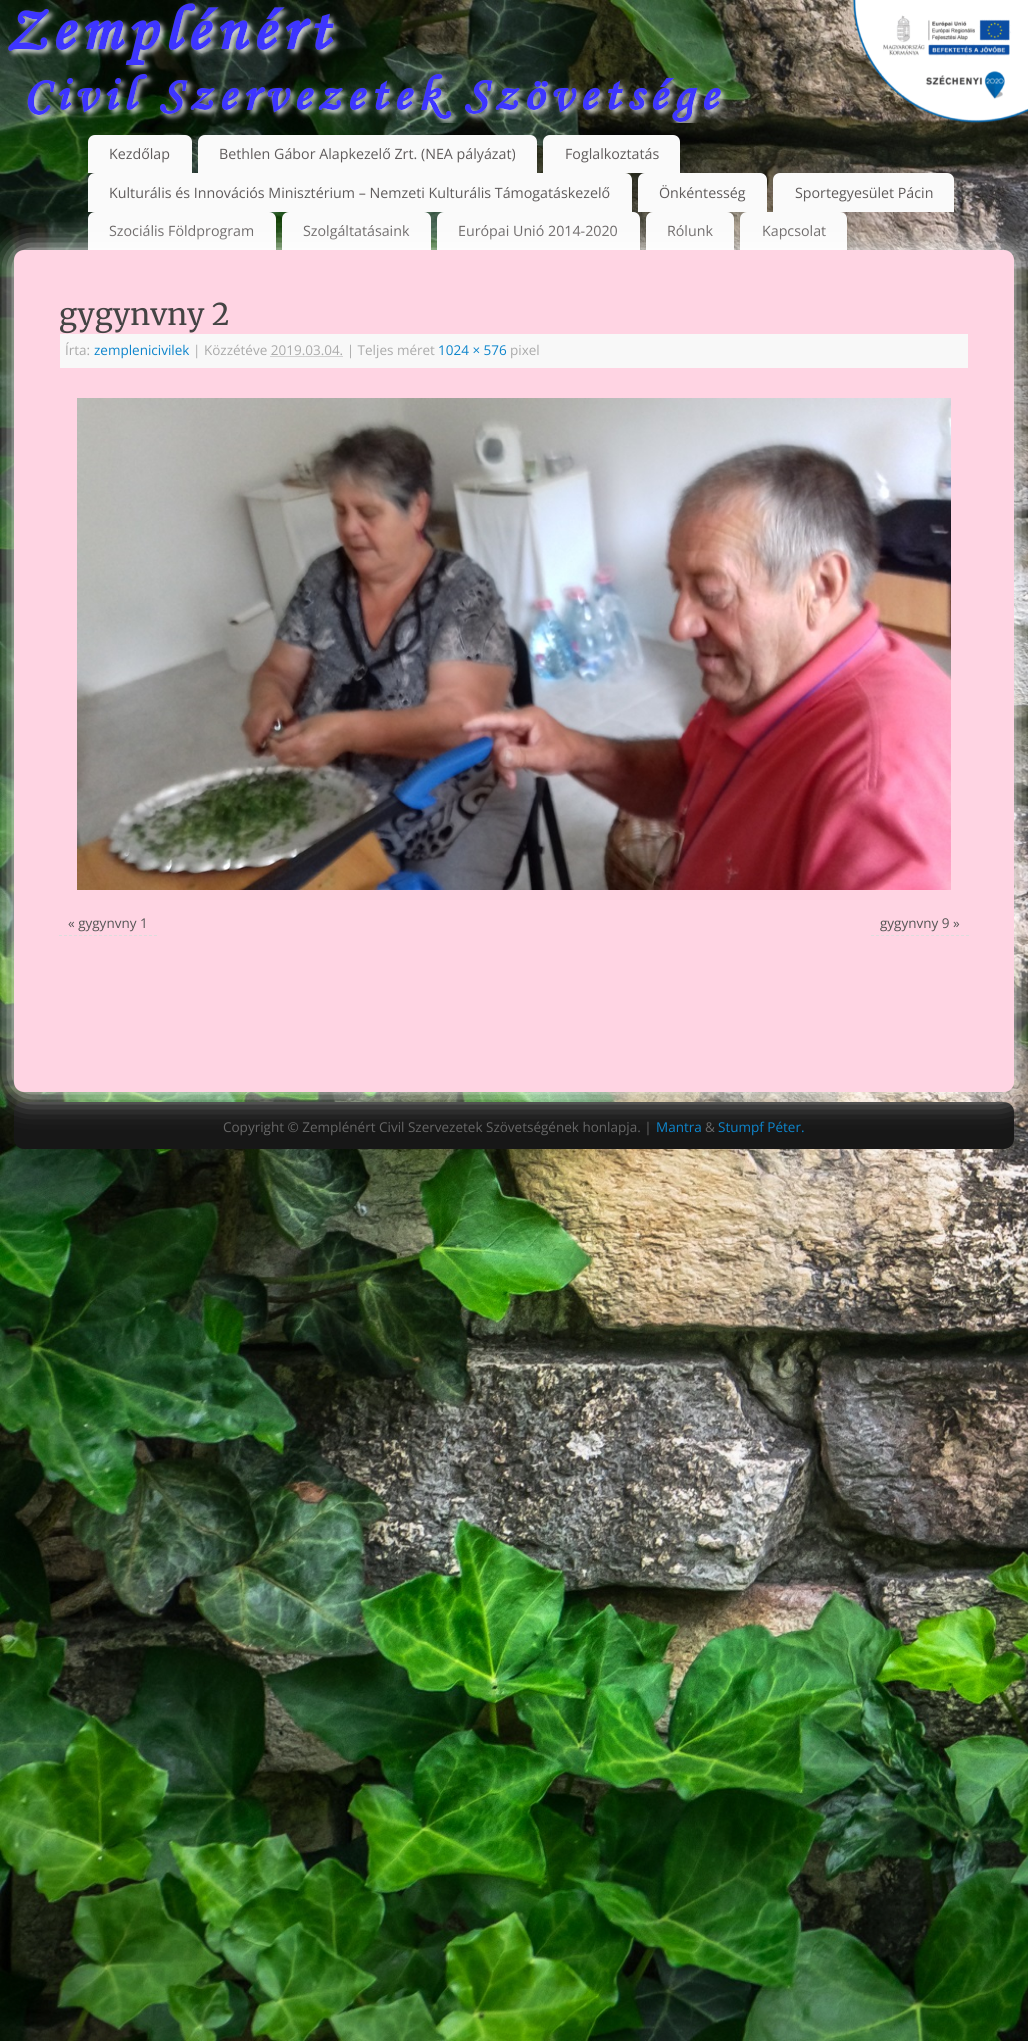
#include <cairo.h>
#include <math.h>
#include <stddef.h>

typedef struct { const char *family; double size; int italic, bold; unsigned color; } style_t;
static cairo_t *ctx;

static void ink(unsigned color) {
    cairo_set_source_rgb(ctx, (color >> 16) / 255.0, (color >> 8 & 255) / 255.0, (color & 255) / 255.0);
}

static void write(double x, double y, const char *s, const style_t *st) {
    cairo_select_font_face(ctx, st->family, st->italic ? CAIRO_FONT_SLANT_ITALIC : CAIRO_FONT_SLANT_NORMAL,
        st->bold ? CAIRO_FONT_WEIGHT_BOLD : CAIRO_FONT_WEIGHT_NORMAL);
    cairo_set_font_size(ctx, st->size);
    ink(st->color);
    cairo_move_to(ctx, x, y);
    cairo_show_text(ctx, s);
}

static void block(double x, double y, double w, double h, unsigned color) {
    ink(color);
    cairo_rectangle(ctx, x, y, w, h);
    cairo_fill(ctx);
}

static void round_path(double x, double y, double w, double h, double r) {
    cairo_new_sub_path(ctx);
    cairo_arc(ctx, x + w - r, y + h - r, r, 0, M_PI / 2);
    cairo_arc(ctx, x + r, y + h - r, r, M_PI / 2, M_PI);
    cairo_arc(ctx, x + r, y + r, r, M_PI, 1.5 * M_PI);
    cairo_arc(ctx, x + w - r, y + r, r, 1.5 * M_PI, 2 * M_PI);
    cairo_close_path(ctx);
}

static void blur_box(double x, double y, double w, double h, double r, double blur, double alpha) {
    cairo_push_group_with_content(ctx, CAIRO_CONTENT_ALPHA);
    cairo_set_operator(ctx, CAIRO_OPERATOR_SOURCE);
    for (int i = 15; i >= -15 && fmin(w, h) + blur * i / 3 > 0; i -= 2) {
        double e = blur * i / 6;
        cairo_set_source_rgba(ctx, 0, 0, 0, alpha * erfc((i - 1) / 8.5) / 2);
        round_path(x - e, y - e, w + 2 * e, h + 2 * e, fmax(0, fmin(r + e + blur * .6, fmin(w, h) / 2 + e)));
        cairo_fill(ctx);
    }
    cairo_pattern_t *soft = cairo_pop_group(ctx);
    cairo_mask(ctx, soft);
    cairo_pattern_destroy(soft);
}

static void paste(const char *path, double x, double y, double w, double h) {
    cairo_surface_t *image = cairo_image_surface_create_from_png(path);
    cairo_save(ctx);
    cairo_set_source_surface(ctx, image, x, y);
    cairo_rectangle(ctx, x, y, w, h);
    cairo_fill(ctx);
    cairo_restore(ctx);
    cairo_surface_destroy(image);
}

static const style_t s1 = {"Open Sans", 14.25, 0, 0, 0x5f5b5b};
static const style_t s2 = {"Merriweather", 30, 0, 0, 0x444444};
static const style_t s3 = {"Open Sans", 13.5, 0, 0, 0xaaaaaa};
static const style_t s4 = {"Open Sans", 13.5, 0, 0, 0x0d85cc};
static const style_t s5 = {"Open Sans", 13.5, 0, 0, 0x555555};
static const style_t s6 = {"Open Sans", 13.5, 0, 0, 0x666666};

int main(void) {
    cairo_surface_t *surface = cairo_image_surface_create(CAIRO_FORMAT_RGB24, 1028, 2041);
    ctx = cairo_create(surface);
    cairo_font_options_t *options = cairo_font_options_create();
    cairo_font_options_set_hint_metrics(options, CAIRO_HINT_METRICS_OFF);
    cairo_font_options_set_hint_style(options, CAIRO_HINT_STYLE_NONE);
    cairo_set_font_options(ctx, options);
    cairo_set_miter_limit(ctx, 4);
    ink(0xffffff);
    cairo_paint(ctx);
    paste("pic1.png", 0, 0, 1028, 2041);
    paste("pic3.png", 7, 2, 1021, 121);
    paste("pic2.png", 853, 0, 175, 123);
    ink(0xfafafa);
    cairo_new_path(ctx);
    cairo_move_to(ctx, 95, 135);
    cairo_line_to(ctx, 185, 135);
    cairo_curve_to(ctx, 189, 135, 192, 138, 192, 142);
    cairo_line_to(ctx, 192, 173);
    cairo_line_to(ctx, 88, 173);
    cairo_line_to(ctx, 88, 142);
    cairo_curve_to(ctx, 88, 138, 91, 135, 95, 135);
    cairo_close_path(ctx);
    cairo_fill(ctx);
    write(109, 159, "Kezdőlap", &s1);
    ink(0xfafafa);
    cairo_new_path(ctx);
    cairo_move_to(ctx, 205, 135);
    cairo_line_to(ctx, 530, 135);
    cairo_curve_to(ctx, 534, 135, 537, 138, 537, 142);
    cairo_line_to(ctx, 537, 173);
    cairo_line_to(ctx, 198, 173);
    cairo_line_to(ctx, 198, 142);
    cairo_curve_to(ctx, 198, 138, 201, 135, 205, 135);
    cairo_close_path(ctx);
    cairo_fill(ctx);
    write(219, 159, "Bethlen Gábor Alapkezelő Zrt. (NEA pályázat)", &s1);
    ink(0xfafafa);
    cairo_new_path(ctx);
    cairo_move_to(ctx, 550, 135);
    cairo_line_to(ctx, 673, 135);
    cairo_curve_to(ctx, 677, 135, 680, 138, 680, 142);
    cairo_line_to(ctx, 680, 173);
    cairo_line_to(ctx, 543, 173);
    cairo_line_to(ctx, 543, 142);
    cairo_curve_to(ctx, 543, 138, 546, 135, 550, 135);
    cairo_close_path(ctx);
    cairo_fill(ctx);
    write(565, 159, "Foglalkoztatás", &s1);
    ink(0xfafafa);
    cairo_new_path(ctx);
    cairo_move_to(ctx, 95, 173);
    cairo_line_to(ctx, 625, 173);
    cairo_curve_to(ctx, 629, 173, 632, 176, 632, 180);
    cairo_line_to(ctx, 632, 212);
    cairo_line_to(ctx, 88, 212);
    cairo_line_to(ctx, 88, 180);
    cairo_curve_to(ctx, 88, 176, 91, 173, 95, 173);
    cairo_close_path(ctx);
    cairo_fill(ctx);
    write(109, 198, "Kulturális és Innovációs Minisztérium – Nemzeti Kulturális Támogatáskezelő", &s1);
    ink(0xfafafa);
    cairo_new_path(ctx);
    cairo_move_to(ctx, 645, 173);
    cairo_line_to(ctx, 760, 173);
    cairo_curve_to(ctx, 764, 173, 767, 176, 767, 180);
    cairo_line_to(ctx, 767, 212);
    cairo_line_to(ctx, 638, 212);
    cairo_line_to(ctx, 638, 180);
    cairo_curve_to(ctx, 638, 176, 641, 173, 645, 173);
    cairo_close_path(ctx);
    cairo_fill(ctx);
    write(659, 198, "Önkéntesség", &s1);
    ink(0xfafafa);
    cairo_new_path(ctx);
    cairo_move_to(ctx, 780, 173);
    cairo_line_to(ctx, 947, 173);
    cairo_curve_to(ctx, 951, 173, 954, 176, 954, 180);
    cairo_line_to(ctx, 954, 212);
    cairo_line_to(ctx, 773, 212);
    cairo_line_to(ctx, 773, 180);
    cairo_curve_to(ctx, 773, 176, 776, 173, 780, 173);
    cairo_close_path(ctx);
    cairo_fill(ctx);
    write(795, 198, "Sportegyesület Pácin", &s1);
    ink(0xfafafa);
    cairo_new_path(ctx);
    cairo_move_to(ctx, 95, 212);
    cairo_line_to(ctx, 269, 212);
    cairo_curve_to(ctx, 273, 212, 276, 215, 276, 219);
    cairo_line_to(ctx, 276, 250);
    cairo_line_to(ctx, 88, 250);
    cairo_line_to(ctx, 88, 219);
    cairo_curve_to(ctx, 88, 215, 91, 212, 95, 212);
    cairo_close_path(ctx);
    cairo_fill(ctx);
    write(109, 236, "Szociális Földprogram", &s1);
    ink(0xfafafa);
    cairo_new_path(ctx);
    cairo_move_to(ctx, 289, 212);
    cairo_line_to(ctx, 424, 212);
    cairo_curve_to(ctx, 428, 212, 431, 215, 431, 219);
    cairo_line_to(ctx, 431, 250);
    cairo_line_to(ctx, 282, 250);
    cairo_line_to(ctx, 282, 219);
    cairo_curve_to(ctx, 282, 215, 285, 212, 289, 212);
    cairo_close_path(ctx);
    cairo_fill(ctx);
    write(303, 236, "Szolgáltatásaink", &s1);
    ink(0xfafafa);
    cairo_new_path(ctx);
    cairo_move_to(ctx, 444, 212);
    cairo_line_to(ctx, 633, 212);
    cairo_curve_to(ctx, 637, 212, 640, 215, 640, 219);
    cairo_line_to(ctx, 640, 250);
    cairo_line_to(ctx, 437, 250);
    cairo_line_to(ctx, 437, 219);
    cairo_curve_to(ctx, 437, 215, 440, 212, 444, 212);
    cairo_close_path(ctx);
    cairo_fill(ctx);
    write(458, 236, "Európai Unió 2014-2020", &s1);
    ink(0xfafafa);
    cairo_new_path(ctx);
    cairo_move_to(ctx, 653, 212);
    cairo_line_to(ctx, 727, 212);
    cairo_curve_to(ctx, 731, 212, 734, 215, 734, 219);
    cairo_line_to(ctx, 734, 250);
    cairo_line_to(ctx, 646, 250);
    cairo_line_to(ctx, 646, 219);
    cairo_curve_to(ctx, 646, 215, 649, 212, 653, 212);
    cairo_close_path(ctx);
    cairo_fill(ctx);
    write(667, 236, "Rólunk", &s1);
    ink(0xfafafa);
    cairo_new_path(ctx);
    cairo_move_to(ctx, 747, 212);
    cairo_line_to(ctx, 840, 212);
    cairo_curve_to(ctx, 844, 212, 847, 215, 847, 219);
    cairo_line_to(ctx, 847, 250);
    cairo_line_to(ctx, 740, 250);
    cairo_line_to(ctx, 740, 219);
    cairo_curve_to(ctx, 740, 215, 743, 212, 747, 212);
    cairo_close_path(ctx);
    cairo_fill(ctx);
    write(762, 236, "Kapcsolat", &s1);
    ink(0x171717);
    round_path(14, 1102, 1000, 47, 10);
    cairo_fill(ctx);
    ink(0xffffff);
    blur_box(14, 250, 1000, 842, 10, 15, 1);
    ink(0xffd4e3);
    round_path(14, 250, 1000, 842, 10);
    cairo_fill(ctx);
    write(59, 325, "gygynvny 2", &s2);
    block(60, 334, 908, 34, 0xf8f8f8);
    write(65, 355, "Írta:", &s3);
    write(94, 355, "zemplenicivilek", &s4);
    write(193, 355, "| Közzétéve 2019.03.04. | Teljes méret", &s3);
    write(438, 355, "1024 × 576", &s4);
    write(510, 355, "pixel", &s3);
    cairo_new_path(ctx);
    cairo_move_to(ctx, 270.5, 356.5);
    cairo_line_to(ctx, 343, 356.5);
    cairo_set_line_width(ctx, 1);
    cairo_set_dash(ctx, (double[]){1, 1}, 2, 0);
    cairo_stroke(ctx);
    paste("pic4.png", 77, 398, 874, 492);
    cairo_new_path(ctx);
    cairo_move_to(ctx, 59, 935.5);
    cairo_line_to(ctx, 157, 935.5);
    ink(0xdddddd);
    cairo_set_dash(ctx, (double[]){3, 2}, 2, 0);
    cairo_stroke(ctx);
    write(68, 928, "« gygynvny 1", &s5);
    cairo_new_path(ctx);
    cairo_move_to(ctx, 871, 935.5);
    cairo_line_to(ctx, 969, 935.5);
    ink(0xdddddd);
    cairo_stroke(ctx);
    write(880, 928, "gygynvny 9 »", &s5);
    write(223, 1132, "Copyright © Zemplénért Civil Szervezetek Szövetségének honlapja. |", &s6);
    write(656, 1132, "Mantra", &s4);
    write(705, 1132, "&", &s6);
    write(718, 1132, "Stumpf Péter.", &s4);
    cairo_surface_write_to_png(surface, "screenshot.png");
    cairo_font_options_destroy(options);
    cairo_destroy(ctx);
    cairo_surface_destroy(surface);
    return 0;
}
